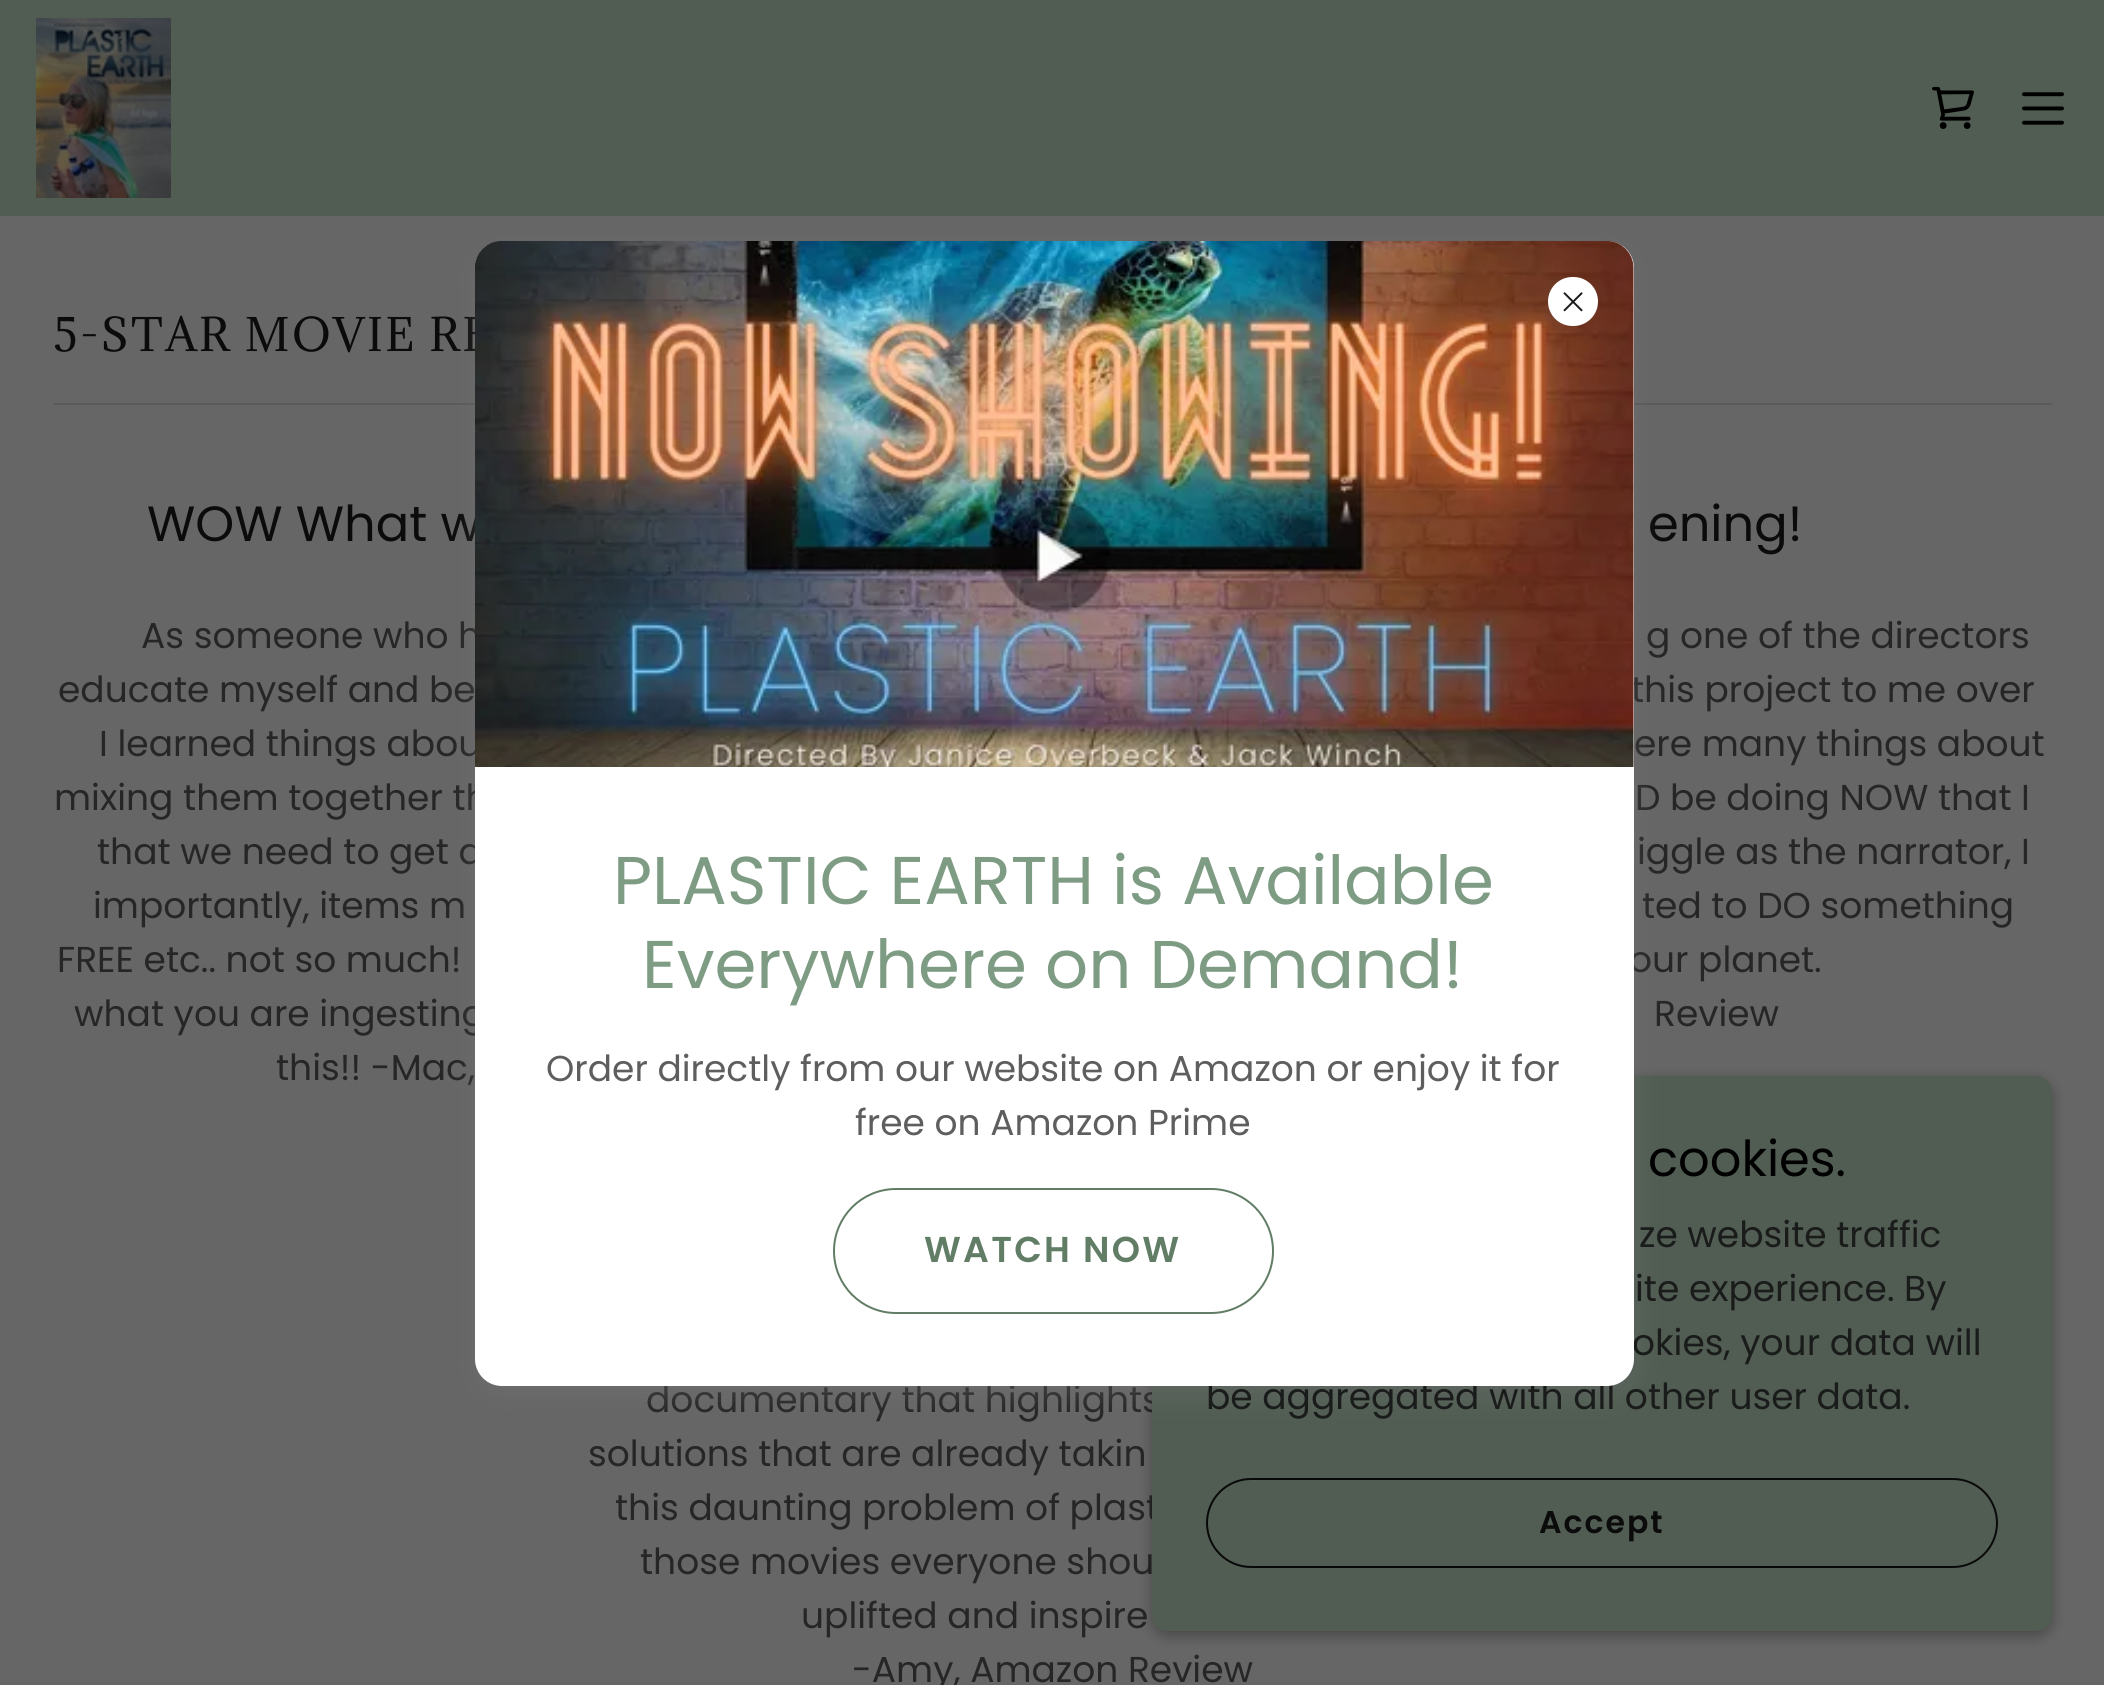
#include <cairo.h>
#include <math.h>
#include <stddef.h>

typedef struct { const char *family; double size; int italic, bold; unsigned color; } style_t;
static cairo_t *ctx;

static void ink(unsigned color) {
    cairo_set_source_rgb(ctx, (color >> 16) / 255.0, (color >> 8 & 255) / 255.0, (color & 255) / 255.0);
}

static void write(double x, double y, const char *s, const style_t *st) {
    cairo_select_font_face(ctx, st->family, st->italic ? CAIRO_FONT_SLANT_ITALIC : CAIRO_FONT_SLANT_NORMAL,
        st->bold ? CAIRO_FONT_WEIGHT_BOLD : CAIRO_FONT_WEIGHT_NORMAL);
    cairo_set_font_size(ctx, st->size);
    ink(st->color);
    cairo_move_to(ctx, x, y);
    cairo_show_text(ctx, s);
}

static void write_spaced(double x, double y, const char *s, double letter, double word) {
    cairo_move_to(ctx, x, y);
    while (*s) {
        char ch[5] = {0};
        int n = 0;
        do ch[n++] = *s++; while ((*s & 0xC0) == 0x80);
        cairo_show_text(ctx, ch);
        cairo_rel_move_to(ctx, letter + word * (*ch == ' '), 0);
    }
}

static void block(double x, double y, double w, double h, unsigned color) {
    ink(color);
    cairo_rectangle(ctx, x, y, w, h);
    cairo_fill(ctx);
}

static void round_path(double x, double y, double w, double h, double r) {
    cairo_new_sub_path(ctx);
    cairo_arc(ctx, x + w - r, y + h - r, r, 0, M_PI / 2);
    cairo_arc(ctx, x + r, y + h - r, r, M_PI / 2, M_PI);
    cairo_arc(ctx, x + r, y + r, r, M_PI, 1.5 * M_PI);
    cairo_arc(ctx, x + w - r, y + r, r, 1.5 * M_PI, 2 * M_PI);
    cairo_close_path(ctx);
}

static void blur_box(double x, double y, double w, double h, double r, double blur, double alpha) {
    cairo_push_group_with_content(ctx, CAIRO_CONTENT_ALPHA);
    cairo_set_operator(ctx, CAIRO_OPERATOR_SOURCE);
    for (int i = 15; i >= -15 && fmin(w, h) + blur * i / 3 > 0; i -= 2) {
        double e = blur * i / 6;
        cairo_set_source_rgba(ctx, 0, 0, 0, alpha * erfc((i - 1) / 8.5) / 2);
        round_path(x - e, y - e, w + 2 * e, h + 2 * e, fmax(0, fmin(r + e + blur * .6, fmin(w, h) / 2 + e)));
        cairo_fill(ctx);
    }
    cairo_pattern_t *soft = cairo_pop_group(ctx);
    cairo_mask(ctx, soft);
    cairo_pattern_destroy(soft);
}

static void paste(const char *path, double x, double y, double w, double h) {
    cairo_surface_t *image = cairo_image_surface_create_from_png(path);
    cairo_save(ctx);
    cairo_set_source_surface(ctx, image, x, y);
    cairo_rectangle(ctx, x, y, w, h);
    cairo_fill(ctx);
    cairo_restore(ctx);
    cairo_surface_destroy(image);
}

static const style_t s1 = {"Poppins", 49.5, 0, 0, 0x0b0b0b};
static const style_t s2 = {"Poppins", 36, 0, 0, 0x262626};
static const style_t s3 = {"Poppins", 36, 0, 0, 0x1a1c1b};
static const style_t s4 = {"Poppins", 67.5, 0, 0, 0x7e9c83};
static const style_t s5 = {"Poppins", 36, 0, 0, 0x5e5e5e};
static const style_t s6 = {"Poppins", 49.5, 0, 0, 0x000000};

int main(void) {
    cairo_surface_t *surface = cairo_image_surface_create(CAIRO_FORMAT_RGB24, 2104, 1685);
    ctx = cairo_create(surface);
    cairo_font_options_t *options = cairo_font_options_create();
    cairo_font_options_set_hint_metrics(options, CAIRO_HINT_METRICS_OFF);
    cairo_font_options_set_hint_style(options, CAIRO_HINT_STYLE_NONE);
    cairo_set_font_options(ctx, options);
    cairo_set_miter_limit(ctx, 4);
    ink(0x515d53);
    cairo_paint(ctx);
    paste("pic1.png", 36, 18, 135, 180);
    paste("pic2.png", 1932, 87, 42, 42);
    paste("pic3.png", 2022, 92, 42, 33);
    block(0, 216, 2104, 1469, 0x666666);
    cairo_select_font_face(ctx, "Adamina", CAIRO_FONT_SLANT_NORMAL, CAIRO_FONT_WEIGHT_NORMAL);
    cairo_set_font_size(ctx, 42.75);
    ink(0x0b0b0b);
    write_spaced(54, 351, "5-STAR MOVIE RE", 2.25, 0);
    block(54, 403, 1998, 2, 0x5a5a5a);
    write(147, 541, "WOW What w", &s1);
    write(141, 648, "As someone who h", &s2);
    write(58, 702, "educate myself and be", &s2);
    write(99, 756, "I learned things abou", &s2);
    write(54, 810, "mixing them together th", &s2);
    write(97, 864, "that we need to get a", &s2);
    write(93, 918, "importantly, items m", &s2);
    write(57, 972, "FREE etc.. not so much!", &s2);
    write(74, 1026, "what you are ingesting", &s2);
    write(276, 1080, "this!! -Mac,", &s2);
    write(1648, 541, "ening!", &s1);
    write(1646, 648, "g one of the directors", &s2);
    write(1631, 702, "this project to me over", &s2);
    write(1634, 756, "ere many things about", &s2);
    write(1635, 810, "D be doing NOW that I", &s2);
    write(1637, 864, "iggle as the narrator, I", &s2);
    write(1642, 918, "ted to DO something", &s2);
    write(1629, 972, "our planet.", &s2);
    write(1654, 1026, "Review", &s2);
    write(646, 1412, "documentary that highlights", &s2);
    write(588, 1466, "solutions that are already takin", &s2);
    write(615, 1520, "this daunting problem of plast", &s2);
    write(640, 1574, "those movies everyone shou", &s2);
    write(801, 1628, "uplifted and inspire", &s2);
    write(852, 1682, "-Amy, Amazon Review", &s2);
    ink(0x000000);
    blur_box(1152, 1080, 900, 556, 16, 7, 0.3);
    ink(0x515d53);
    round_path(1152, 1076, 900, 555, 16);
    cairo_fill(ctx);
    ink(0x757575);
    blur_box(475, 250, 1159, 1145, 27, 13.5, 0.4);
    write(1632, 1355, "okies, your data will", &s3);
    write(1206, 1409, "be aggregated with all other user data.", &s3);
    ink(0xffffff);
    round_path(475, 241, 1159, 1145, 27);
    cairo_fill(ctx);
    paste("pic5.png", 475, 241, 1159, 526);
    round_path(1548, 277, 50, 49, 24.5);
    cairo_fill(ctx);
    paste("pic4.png", 1563, 292, 20, 20);
    write(613, 904, "PLASTIC EARTH is Available", &s4);
    write(642, 988, "Everywhere on Demand!", &s4);
    write(546, 1081, "Order directly from our website on Amazon or enjoy it for", &s5);
    write(855, 1135, "free on Amazon Prime", &s5);
    round_path(834, 1189, 439, 124, 62);
    ink(0x617d66);
    cairo_stroke(ctx);
    cairo_select_font_face(ctx, "Poppins SemiBold", CAIRO_FONT_SLANT_NORMAL, CAIRO_FONT_WEIGHT_NORMAL);
    write_spaced(924, 1262, "WATCH NOW", 2.25, 0);
    write(1648, 1176, "cookies.", &s6);
    write(1639, 1247, "ze website traffic", &s3);
    write(1635, 1301, "ite experience. By", &s3);
    round_path(1207, 1479, 790, 88, 44);
    ink(0x090909);
    cairo_stroke(ctx);
    cairo_select_font_face(ctx, "Poppins SemiBold", CAIRO_FONT_SLANT_NORMAL, CAIRO_FONT_WEIGHT_NORMAL);
    cairo_set_font_size(ctx, 31.5);
    ink(0x0b0b0b);
    write_spaced(1539, 1533, "Accept", 2, 0);
    cairo_surface_write_to_png(surface, "screenshot.png");
    cairo_font_options_destroy(options);
    cairo_destroy(ctx);
    cairo_surface_destroy(surface);
    return 0;
}
